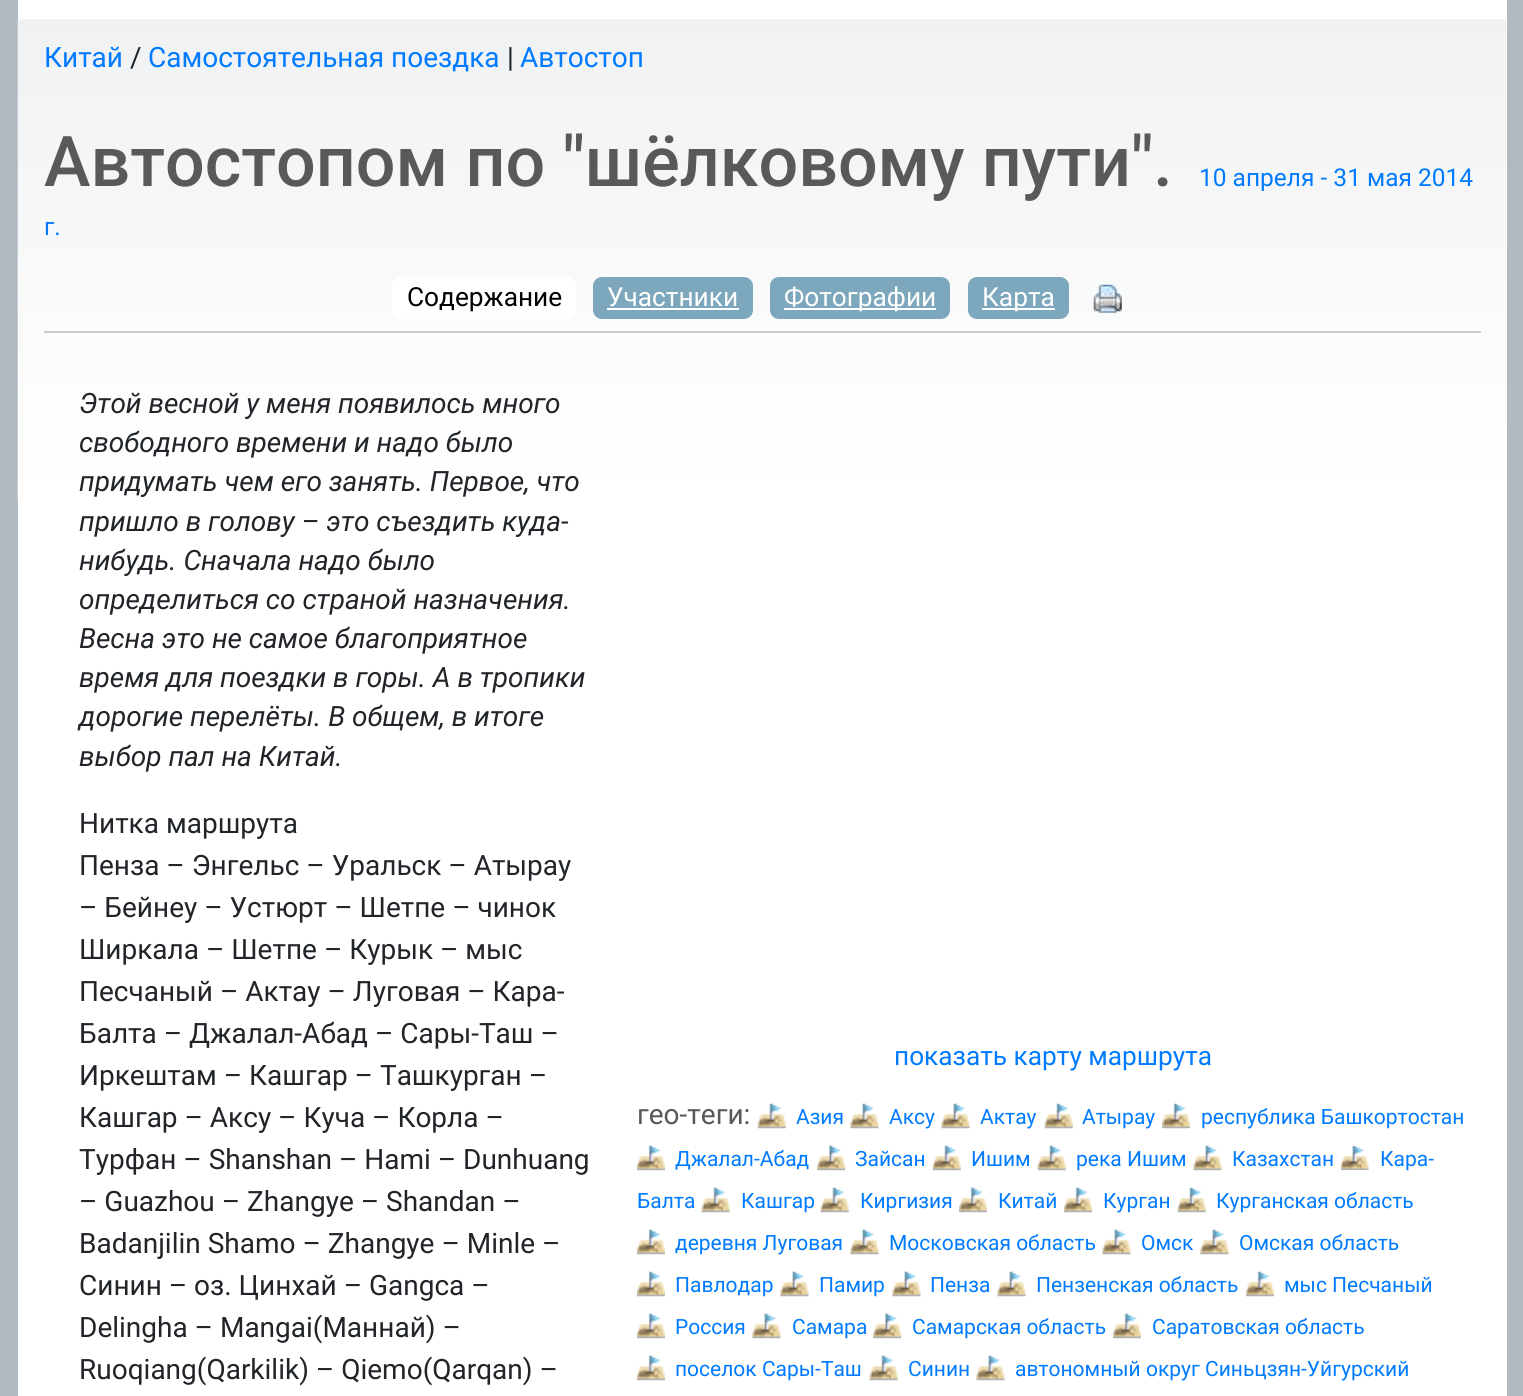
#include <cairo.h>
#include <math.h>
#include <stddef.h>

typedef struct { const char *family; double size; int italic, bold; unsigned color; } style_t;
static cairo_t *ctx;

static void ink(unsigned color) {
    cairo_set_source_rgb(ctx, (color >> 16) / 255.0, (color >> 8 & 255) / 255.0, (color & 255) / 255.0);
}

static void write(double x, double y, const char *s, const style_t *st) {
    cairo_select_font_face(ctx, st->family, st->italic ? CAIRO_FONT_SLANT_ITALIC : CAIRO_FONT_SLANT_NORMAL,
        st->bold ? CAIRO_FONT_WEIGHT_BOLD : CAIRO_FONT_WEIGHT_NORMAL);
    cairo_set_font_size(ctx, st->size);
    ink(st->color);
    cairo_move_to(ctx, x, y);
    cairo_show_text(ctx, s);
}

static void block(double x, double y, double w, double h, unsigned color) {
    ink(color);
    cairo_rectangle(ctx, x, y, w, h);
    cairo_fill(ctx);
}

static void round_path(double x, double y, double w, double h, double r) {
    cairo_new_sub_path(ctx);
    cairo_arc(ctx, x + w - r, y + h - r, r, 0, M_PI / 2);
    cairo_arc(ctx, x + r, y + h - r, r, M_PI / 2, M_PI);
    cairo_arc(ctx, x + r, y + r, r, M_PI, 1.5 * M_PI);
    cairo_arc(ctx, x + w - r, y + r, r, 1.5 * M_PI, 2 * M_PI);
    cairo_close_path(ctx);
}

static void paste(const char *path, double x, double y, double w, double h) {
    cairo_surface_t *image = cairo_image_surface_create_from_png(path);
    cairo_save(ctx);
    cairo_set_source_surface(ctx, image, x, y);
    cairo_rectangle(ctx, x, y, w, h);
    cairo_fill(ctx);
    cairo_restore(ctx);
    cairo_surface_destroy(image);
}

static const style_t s1 = {"Roboto", 28, 0, 0, 0x007bff};
static const style_t s2 = {"Roboto", 28, 0, 0, 0x212529};
static const style_t s3 = {"Roboto Medium", 70, 0, 0, 0x595959};
static const style_t s4 = {"Roboto", 24.5, 0, 0, 0x007bff};
static const style_t s5 = {"Roboto", 26.25, 0, 0, 0x000000};
static const style_t s6 = {"Roboto", 26.25, 0, 0, 0xffffff};
static const style_t s7 = {"Roboto", 28, 1, 0, 0x212529};
static const style_t s8 = {"Roboto", 26.25, 0, 0, 0x007bff};
static const style_t s9 = {"Roboto", 28, 0, 0, 0x595959};
static const style_t s10 = {"Roboto", 21, 0, 0, 0x007bff};

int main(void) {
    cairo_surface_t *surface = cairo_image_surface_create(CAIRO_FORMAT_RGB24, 1523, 1396);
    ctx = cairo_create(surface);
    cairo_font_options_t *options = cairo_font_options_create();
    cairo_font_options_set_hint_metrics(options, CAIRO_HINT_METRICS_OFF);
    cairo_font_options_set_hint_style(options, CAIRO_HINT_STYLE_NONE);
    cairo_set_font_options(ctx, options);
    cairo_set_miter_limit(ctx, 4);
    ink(0xb1bac1);
    cairo_paint(ctx);
    block(18, 0, 1489, 1396, 0xffffff);
    paste("pic1.png", 17, 19, 1490, 483);
    write(44, 67, "Китай", &s1);
    write(130, 67, "/", &s2);
    write(148, 67, "Самостоятельная поездка", &s1);
    write(507, 67, "|", &s2);
    write(520, 67, "Автостоп", &s1);
    write(44, 186, "Автостопом по \"шёлковому пути\".", &s3);
    write(1199, 186, "10 апреля - 31 мая 2014", &s4);
    write(44, 235, "г.", &s4);
    block(44, 331, 1437, 2, 0xcccccc);
    ink(0xffffff);
    round_path(392, 277, 184, 42, 9);
    cairo_fill(ctx);
    write(407, 306, "Содержание", &s5);
    ink(0x7da7bc);
    round_path(593, 277, 160, 42, 9);
    cairo_fill(ctx);
    write(607, 306, "Участники", &s6);
    block(607, 308, 132, 2, 0xffffff);
    ink(0x7da7bc);
    round_path(770, 277, 180, 42, 9);
    cairo_fill(ctx);
    block(784, 308, 152, 2, 0xffffff);
    write(784, 306, "Фотографии", &s6);
    ink(0x7da7bc);
    round_path(968, 277, 101, 42, 9);
    cairo_fill(ctx);
    block(982, 308, 73, 2, 0xffffff);
    write(982, 306, "Карта", &s6);
    paste("pic2.png", 1093, 284, 29, 29);
    write(79, 413, "Этой весной у меня появилось много", &s7);
    write(79, 452, "свободного времени и надо было", &s7);
    write(79, 491, "придумать чем его занять. Первое, что", &s7);
    write(79, 531, "пришло в голову – это съездить куда-", &s7);
    write(79, 570, "нибудь. Сначала надо было", &s7);
    write(79, 609, "определиться со страной назначения.", &s7);
    write(79, 648, "Весна это не самое благоприятное", &s7);
    write(79, 687, "время для поездки в горы. А в тропики", &s7);
    write(79, 726, "дорогие перелёты. В общем, в итоге", &s7);
    write(79, 766, "выбор пал на Китай.", &s7);
    write(79, 833, "Нитка маршрута", &s2);
    write(79, 875, "Пенза – Энгельс – Уральск – Атырау", &s2);
    write(79, 917, "– Бейнеу – Устюрт – Шетпе – чинок", &s2);
    write(79, 959, "Ширкала – Шетпе – Курык – мыс", &s2);
    write(79, 1001, "Песчаный – Актау – Луговая – Кара-", &s2);
    write(79, 1043, "Балта – Джалал-Абад – Сары-Таш –", &s2);
    write(79, 1085, "Иркештам – Кашгар – Ташкурган –", &s2);
    write(79, 1127, "Кашгар – Аксу – Куча – Корла –", &s2);
    write(79, 1169, "Турфан – Shanshan – Hami – Dunhuang", &s2);
    write(79, 1211, "– Guazhou – Zhangye – Shandan –", &s2);
    write(79, 1253, "Badanjilin Shamo – Zhangye – Minle –", &s2);
    write(79, 1295, "Синин – оз. Цинхай – Gangca –", &s2);
    write(79, 1337, "Delingha – Mangai(Маннай) –", &s2);
    write(79, 1379, "Ruoqiang(Qarkilik) – Qiemo(Qarqan) –", &s2);
    write(894, 1065, "показать карту маршрута", &s8);
    write(637, 1124, "гео-теги:", &s9);
    paste("pic3.png", 757, 1103, 29, 26);
    write(796, 1124, "Азия", &s10);
    paste("pic4.png", 850, 1103, 29, 26);
    write(889, 1124, "Аксу", &s10);
    paste("pic5.png", 941, 1103, 29, 26);
    write(980, 1124, "Актау", &s10);
    paste("pic3.png", 1044, 1103, 29, 26);
    write(1082, 1124, "Атырау", &s10);
    paste("pic6.png", 1162, 1103, 28, 26);
    write(1201, 1124, "республика Башкортостан", &s10);
    paste("pic6.png", 637, 1145, 28, 26);
    write(675, 1166, "Джалал-Абад", &s10);
    paste("pic7.png", 817, 1145, 29, 26);
    write(855, 1166, "Зайсан", &s10);
    paste("pic3.png", 932, 1145, 29, 26);
    write(971, 1166, "Ишим", &s10);
    paste("pic3.png", 1037, 1145, 29, 26);
    write(1076, 1166, "река Ишим", &s10);
    paste("pic4.png", 1193, 1145, 29, 26);
    write(1232, 1166, "Казахстан", &s10);
    paste("pic8.png", 1341, 1146, 28, 24);
    write(1380, 1166, "Кара-", &s10);
    write(637, 1208, "Балта", &s10);
    paste("pic9.png", 701, 1187, 29, 26);
    write(741, 1208, "Кашгар", &s10);
    paste("pic9.png", 820, 1187, 29, 26);
    write(860, 1208, "Киргизия", &s10);
    paste("pic6.png", 959, 1187, 28, 26);
    write(998, 1208, "Китай", &s10);
    paste("pic6.png", 1064, 1187, 28, 26);
    write(1103, 1208, "Курган", &s10);
    paste("pic3.png", 1177, 1187, 29, 26);
    write(1216, 1208, "Курганская область", &s10);
    paste("pic6.png", 637, 1229, 28, 26);
    write(675, 1250, "деревня Луговая", &s10);
    paste("pic4.png", 850, 1229, 29, 26);
    write(889, 1250, "Московская область", &s10);
    paste("pic4.png", 1102, 1229, 29, 26);
    write(1141, 1250, "Омск", &s10);
    paste("pic4.png", 1200, 1229, 29, 26);
    write(1239, 1250, "Омская область", &s10);
    paste("pic6.png", 637, 1271, 28, 26);
    write(675, 1292, "Павлодар", &s10);
    paste("pic10.png", 780, 1271, 29, 26);
    write(819, 1292, "Памир", &s10);
    paste("pic5.png", 892, 1271, 29, 26);
    write(930, 1292, "Пенза", &s10);
    paste("pic11.png", 997, 1271, 29, 26);
    write(1036, 1292, "Пензенская область", &s10);
    paste("pic12.png", 1246, 1271, 28, 26);
    write(1284, 1292, "мыс Песчаный", &s10);
    paste("pic6.png", 637, 1313, 28, 26);
    write(675, 1334, "Россия", &s10);
    paste("pic10.png", 752, 1313, 29, 26);
    write(792, 1334, "Самара", &s10);
    paste("pic7.png", 873, 1313, 29, 26);
    write(912, 1334, "Самарская область", &s10);
    paste("pic6.png", 1113, 1313, 28, 26);
    write(1152, 1334, "Саратовская область", &s10);
    paste("pic6.png", 637, 1355, 28, 26);
    write(675, 1376, "поселок Сары-Таш", &s10);
    paste("pic3.png", 869, 1355, 29, 26);
    write(908, 1376, "Синин", &s10);
    paste("pic5.png", 976, 1355, 29, 26);
    write(1015, 1376, "автономный округ Синьцзян-Уйгурский", &s10);
    cairo_surface_write_to_png(surface, "screenshot.png");
    cairo_font_options_destroy(options);
    cairo_destroy(ctx);
    cairo_surface_destroy(surface);
    return 0;
}
